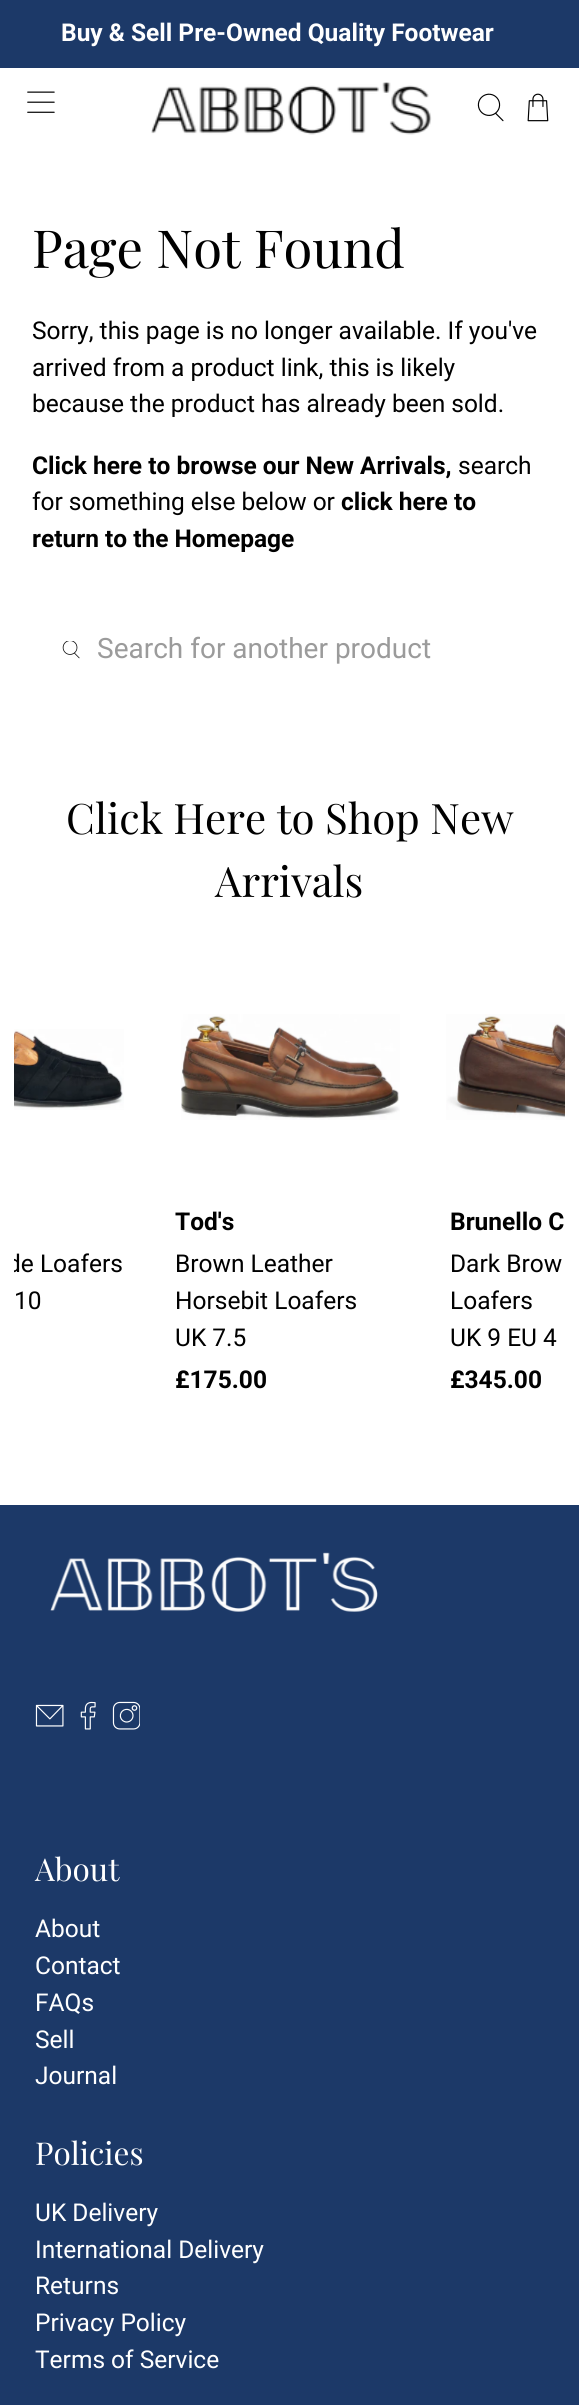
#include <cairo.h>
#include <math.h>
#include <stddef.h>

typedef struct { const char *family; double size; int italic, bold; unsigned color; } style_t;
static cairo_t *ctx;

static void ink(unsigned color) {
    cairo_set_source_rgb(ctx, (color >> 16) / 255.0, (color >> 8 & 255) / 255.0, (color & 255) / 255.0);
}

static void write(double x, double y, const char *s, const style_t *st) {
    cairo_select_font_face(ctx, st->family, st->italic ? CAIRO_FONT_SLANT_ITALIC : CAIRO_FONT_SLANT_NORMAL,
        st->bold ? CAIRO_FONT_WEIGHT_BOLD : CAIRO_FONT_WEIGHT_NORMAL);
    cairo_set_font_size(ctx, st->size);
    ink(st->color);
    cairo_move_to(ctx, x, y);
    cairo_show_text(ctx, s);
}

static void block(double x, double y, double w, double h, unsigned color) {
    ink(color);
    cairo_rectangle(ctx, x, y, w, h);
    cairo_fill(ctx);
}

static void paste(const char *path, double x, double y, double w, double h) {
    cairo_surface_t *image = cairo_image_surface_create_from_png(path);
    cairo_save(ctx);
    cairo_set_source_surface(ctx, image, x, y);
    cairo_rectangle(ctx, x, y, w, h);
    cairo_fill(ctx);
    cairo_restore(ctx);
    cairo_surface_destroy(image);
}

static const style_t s1 = {"Roboto", 24.5, 0, 1, 0xffffff};
static const style_t s2 = {"Playfair Display", 52.5, 0, 0, 0x000000};
static const style_t s3 = {"Roboto", 24.5, 0, 0, 0x000000};
static const style_t s4 = {"Roboto", 24.5, 0, 1, 0x000000};
static const style_t s5 = {"Roboto", 28, 0, 0, 0x9b9b9b};
static const style_t s6 = {"Playfair Display", 42, 0, 0, 0x000000};
static const style_t s7 = {"Playfair Display", 31.5, 0, 0, 0xffffff};
static const style_t s8 = {"Roboto", 24.5, 0, 0, 0xffffff};

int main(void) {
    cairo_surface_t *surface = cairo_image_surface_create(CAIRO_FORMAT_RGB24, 579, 2405);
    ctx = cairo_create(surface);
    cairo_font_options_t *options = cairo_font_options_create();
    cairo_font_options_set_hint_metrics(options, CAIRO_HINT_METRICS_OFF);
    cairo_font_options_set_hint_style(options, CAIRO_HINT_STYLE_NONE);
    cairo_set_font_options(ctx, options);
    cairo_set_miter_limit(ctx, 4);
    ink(0xffffff);
    cairo_paint(ctx);
    block(0, 0, 579, 68, 0x1c3968);
    write(61, 41, "Buy & Sell Pre-Owned Quality Footwear", &s1);
    paste("pic1.png", 27, 91, 28, 22);
    paste("pic2.png", 151, 82, 281, 53);
    paste("pic3.png", 477, 93, 27, 29);
    paste("pic4.png", 527, 93, 22, 29);
    write(32, 268, "Page Not Found", &s2);
    write(32, 339, "Sorry, this page is no longer available. If you've", &s3);
    write(32, 376, "arrived from a product link, this is likely", &s3);
    write(32, 412, "because the product has already been sold.", &s3);
    write(32, 474, "Click here to browse our New Arrivals,", &s4);
    write(458, 474, "search", &s3);
    write(32, 510, "for something else below or", &s3);
    write(341, 510, "click here to", &s4);
    write(32, 547, "return to the Homepage", &s4);
    paste("pic5.png", 62, 641, 18, 18);
    write(97, 658, "Search for another product", &s5);
    write(66, 834, "Click Here to Shop New", &s6);
    write(215, 897, "Arrivals", &s6);
    paste("pic6.png", 14, 1029, 110, 81);
    cairo_save(ctx);
    cairo_rectangle(ctx, 14, 947, 551, 523);
    cairo_clip(ctx);
    write(7, 1272, "de Loafers", &s3);
    cairo_restore(ctx);
    write(14, 1309, "10", &s3);
    paste("pic7.png", 181, 1014, 219, 106);
    write(175, 1230, "Tod's", &s4);
    write(175, 1272, "Brown Leather", &s3);
    write(175, 1309, "Horsebit Loafers", &s3);
    write(175, 1346, "UK 7.5", &s3);
    write(175, 1388, "£175.00", &s4);
    paste("pic8.png", 446, 1014, 119, 106);
    write(450, 1230, "Brunello C", &s4);
    write(450, 1272, "Dark Brow", &s3);
    write(450, 1309, "Loafers", &s3);
    write(450, 1346, "UK 9 EU 4", &s3);
    write(450, 1388, "£345.00", &s4);
    block(0, 1505, 579, 900, 0x1c3968);
    paste("pic9.png", 50, 1552, 328, 60);
    paste("pic10.png", 35, 1704, 29, 23);
    paste("pic11.png", 80, 1701, 16, 29);
    paste("pic12.png", 112, 1701, 28, 29);
    write(35, 1881, "About", &s7);
    write(35, 1937, "About", &s8);
    write(35, 1974, "Contact", &s8);
    write(35, 2011, "FAQs", &s8);
    write(35, 2048, "Sell", &s8);
    write(35, 2084, "Journal", &s8);
    write(35, 2165, "Policies", &s7);
    write(35, 2221, "UK Delivery", &s8);
    write(35, 2258, "International Delivery", &s8);
    write(35, 2294, "Returns", &s8);
    write(35, 2331, "Privacy Policy", &s8);
    write(35, 2368, "Terms of Service", &s8);
    cairo_surface_write_to_png(surface, "screenshot.png");
    cairo_font_options_destroy(options);
    cairo_destroy(ctx);
    cairo_surface_destroy(surface);
    return 0;
}
